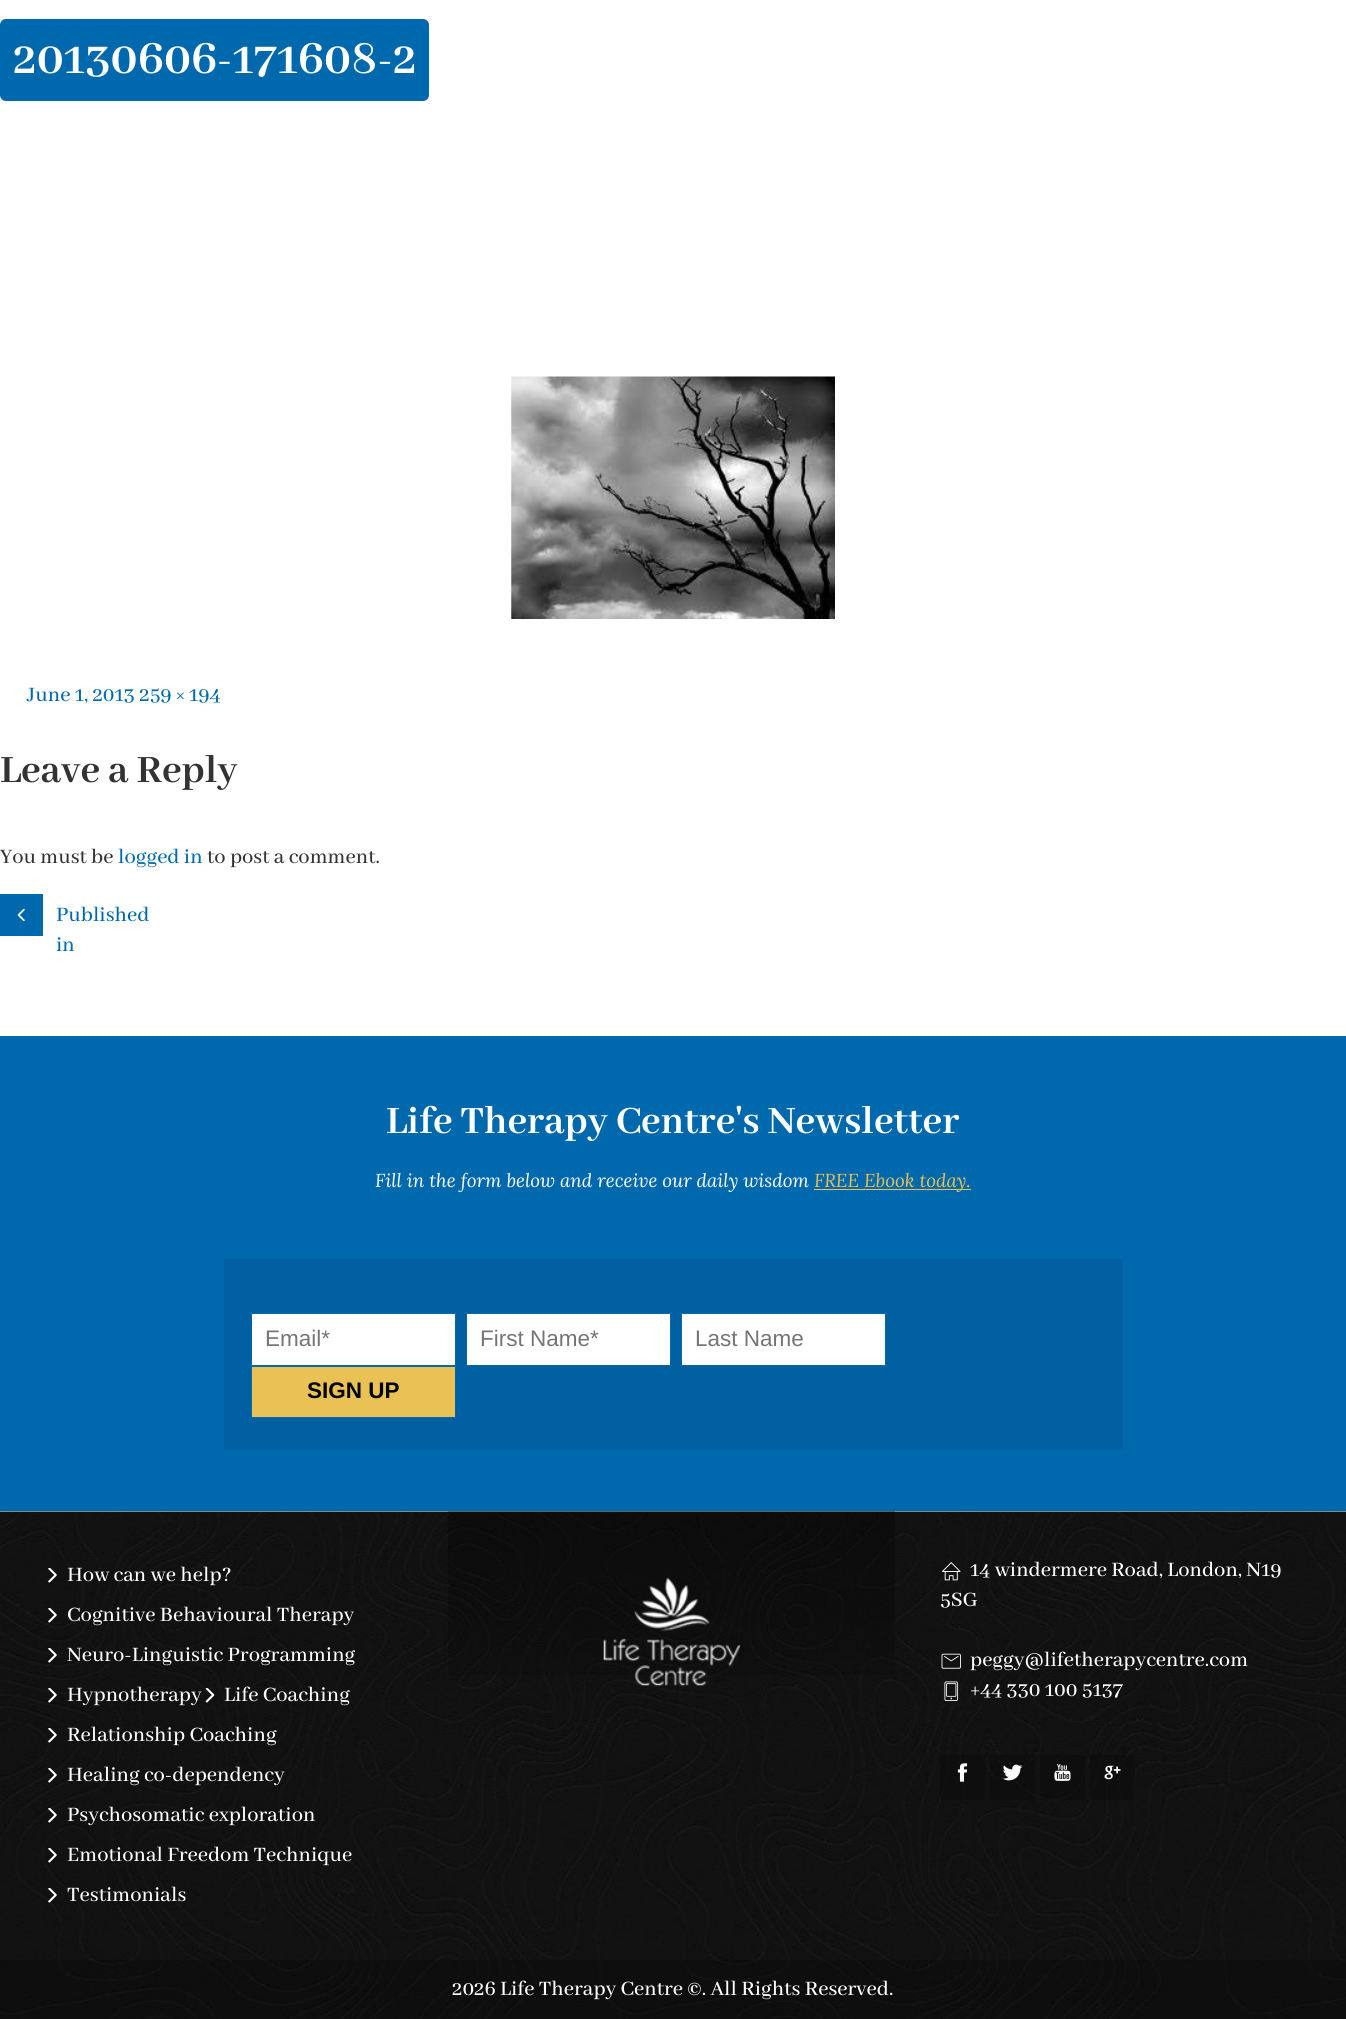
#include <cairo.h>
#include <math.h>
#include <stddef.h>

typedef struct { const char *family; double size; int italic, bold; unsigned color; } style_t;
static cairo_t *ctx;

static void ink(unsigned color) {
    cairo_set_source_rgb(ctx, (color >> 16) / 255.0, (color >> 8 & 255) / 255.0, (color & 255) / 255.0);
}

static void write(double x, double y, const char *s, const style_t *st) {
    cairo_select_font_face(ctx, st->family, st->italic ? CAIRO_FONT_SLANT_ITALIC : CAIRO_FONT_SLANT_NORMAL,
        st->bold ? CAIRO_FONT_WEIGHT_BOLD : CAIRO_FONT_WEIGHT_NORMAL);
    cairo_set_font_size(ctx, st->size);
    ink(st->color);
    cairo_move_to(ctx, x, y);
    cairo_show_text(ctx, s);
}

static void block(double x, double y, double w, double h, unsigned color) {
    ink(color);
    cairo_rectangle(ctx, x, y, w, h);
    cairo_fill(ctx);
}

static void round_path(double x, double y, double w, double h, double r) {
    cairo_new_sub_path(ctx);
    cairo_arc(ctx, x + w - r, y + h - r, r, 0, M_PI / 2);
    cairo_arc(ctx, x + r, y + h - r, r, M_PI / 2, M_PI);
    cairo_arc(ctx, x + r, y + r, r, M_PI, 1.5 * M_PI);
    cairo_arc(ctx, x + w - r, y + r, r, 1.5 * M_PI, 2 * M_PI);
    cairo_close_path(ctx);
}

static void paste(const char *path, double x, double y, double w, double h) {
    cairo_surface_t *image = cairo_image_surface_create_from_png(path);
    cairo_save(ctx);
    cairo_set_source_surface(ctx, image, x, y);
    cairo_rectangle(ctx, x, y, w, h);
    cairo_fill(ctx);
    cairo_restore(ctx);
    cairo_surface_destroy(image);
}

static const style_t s1 = {"Abhaya Libre", 50, 0, 1, 0xffffff};
static const style_t s2 = {"Abhaya Libre Medium Medium", 22.5, 0, 0, 0x0069ad};
static const style_t s3 = {"Abhaya Libre", 42.5, 0, 1, 0x333333};
static const style_t s4 = {"Abhaya Libre Medium Medium", 22.5, 0, 0, 0x333333};
static const style_t s5 = {"Abhaya Libre", 42.5, 0, 1, 0xffffff};
static const style_t s6 = {"Lora", 18.75, 1, 0, 0xffffff};
static const style_t s7 = {"Lora", 18.75, 1, 0, 0xe9c155};
static const style_t s8 = {"Liberation Sans", 22.5, 0, 0, 0x757575};
static const style_t s9 = {"Liberation Sans", 22.5, 0, 1, 0x000000};
static const style_t s10 = {"Abhaya Libre Medium Medium", 22.5, 0, 0, 0xffffff};

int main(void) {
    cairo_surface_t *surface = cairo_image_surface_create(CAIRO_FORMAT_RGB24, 1346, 2019);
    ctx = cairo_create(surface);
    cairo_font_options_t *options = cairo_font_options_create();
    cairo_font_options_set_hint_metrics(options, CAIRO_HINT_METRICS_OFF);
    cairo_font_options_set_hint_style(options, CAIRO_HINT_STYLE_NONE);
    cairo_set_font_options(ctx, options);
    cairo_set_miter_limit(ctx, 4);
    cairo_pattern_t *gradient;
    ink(0xffffff);
    cairo_paint(ctx);
    ink(0x0069ad);
    round_path(0, 19, 429, 82, 6);
    cairo_fill(ctx);
    write(13, 73, "20130606-171608-2", &s1);
    paste("pic1.png", 511, 376, 324, 243);
    write(27, 701, "June 1, 2013 259 × 194", &s2);
    write(0, 782, "Leave a Reply", &s3);
    write(0, 863, "You must be", &s4);
    write(118, 863, "logged in", &s2);
    write(207, 863, "to post a comment.", &s4);
    block(0, 894, 43, 42, 0x0069ad);
    paste("pic2.png", 17, 909, 8, 12);
    write(56, 921, "Published", &s2);
    write(56, 951, "in", &s2);
    block(0, 1036, 1346, 475, 0x0069ad);
    write(386, 1133, "Life Therapy Centre's Newsletter", &s5);
    write(375, 1187, "Fill in the form below and receive our daily wisdom", &s6);
    block(814, 1189, 157, 1, 0xe9c155);
    write(814, 1187, "FREE Ebook today.", &s7);
    block(224, 1259, 899, 190, 0x0060a2);
    ink(0xffffff);
    cairo_rectangle(ctx, 251.5, 1313.5, 204, 52);
    cairo_fill_preserve(ctx);
    ink(0x0069ad);
    cairo_set_line_width(ctx, 1);
    cairo_stroke(ctx);
    write(265, 1346, "Email*", &s8);
    ink(0xffffff);
    cairo_rectangle(ctx, 466.5, 1313.5, 204, 52);
    cairo_fill_preserve(ctx);
    ink(0x0069ad);
    cairo_stroke(ctx);
    write(480, 1346, "First Name*", &s8);
    ink(0xffffff);
    cairo_rectangle(ctx, 681.5, 1313.5, 204, 52);
    cairo_fill_preserve(ctx);
    ink(0x0069ad);
    cairo_stroke(ctx);
    write(695, 1346, "Last Name", &s8);
    ink(0xe9c155);
    cairo_rectangle(ctx, 251.5, 1366.5, 204, 51);
    cairo_fill_preserve(ctx);
    ink(0x0069ad);
    cairo_stroke(ctx);
    write(307, 1398, "SIGN UP", &s9);
    paste("pic3.png", 0, 1511, 1346, 508);
    paste("pic4.png", 48, 1568, 9, 15);
    write(67, 1581, "How can we help?", &s10);
    paste("pic5.png", 48, 1608, 9, 15);
    write(67, 1621, "Cognitive Behavioural Therapy", &s10);
    paste("pic6.png", 48, 1648, 9, 15);
    write(67, 1661, "Neuro-Linguistic Programming", &s10);
    paste("pic7.png", 48, 1688, 9, 15);
    write(67, 1701, "Hypnotherapy", &s10);
    paste("pic8.png", 205, 1688, 10, 15);
    write(224, 1701, "Life Coaching", &s10);
    paste("pic9.png", 48, 1728, 9, 15);
    write(67, 1741, "Relationship Coaching", &s10);
    paste("pic10.png", 48, 1768, 9, 15);
    write(67, 1781, "Healing co-dependency", &s10);
    paste("pic11.png", 48, 1808, 9, 15);
    write(67, 1821, "Psychosomatic exploration", &s10);
    paste("pic12.png", 48, 1848, 9, 15);
    write(67, 1861, "Emotional Freedom Technique", &s10);
    paste("pic13.png", 48, 1888, 9, 15);
    write(67, 1901, "Testimonials", &s10);
    gradient = cairo_pattern_create_linear(671, 1511, 671, 1740);
    cairo_pattern_add_color_stop_rgba(gradient, 0, 0, 0, 0, 0.3);
    cairo_pattern_add_color_stop_rgba(gradient, 0.5, 0, 0, 0, 0.2);
    cairo_pattern_add_color_stop_rgba(gradient, 1, 0, 0, 0, 0);
    cairo_set_source(ctx, gradient);
    cairo_pattern_destroy(gradient);
    cairo_rectangle(ctx, 448, 1511, 447, 164);
    cairo_fill(ctx);
    paste("pic14.png", 603, 1577, 137, 109);
    paste("pic15.png", 942, 1562, 19, 19);
    write(970, 1576, "14 windermere Road, London, N19", &s10);
    write(940, 1606, "5SG", &s10);
    paste("pic16.png", 941, 1653, 20, 16);
    write(970, 1666, "peggy@lifetherapycentre.com", &s10);
    paste("pic17.png", 944, 1681, 15, 20);
    write(970, 1696, "+44 330 100 5137", &s10);
    cairo_set_source_rgba(ctx, 0, 0, 0, 0.2);
    cairo_rectangle(ctx, 940, 1755, 45, 45);
    cairo_fill(ctx);
    paste("pic18.png", 957, 1763, 11, 19);
    cairo_rectangle(ctx, 990, 1755, 45, 45);
    cairo_fill(ctx);
    paste("pic19.png", 1002, 1764, 21, 17);
    cairo_rectangle(ctx, 1040, 1755, 45, 45);
    cairo_fill(ctx);
    paste("pic20.png", 1054, 1764, 17, 17);
    cairo_rectangle(ctx, 1090, 1755, 45, 45);
    cairo_fill(ctx);
    paste("pic21.png", 1104, 1765, 17, 15);
    cairo_rectangle(ctx, 0, 1960, 1346, 59);
    cairo_fill(ctx);
    write(452, 1995, "2026 Life Therapy Centre ©. All Rights Reserved.", &s10);
    cairo_surface_write_to_png(surface, "screenshot.png");
    cairo_font_options_destroy(options);
    cairo_destroy(ctx);
    cairo_surface_destroy(surface);
    return 0;
}
